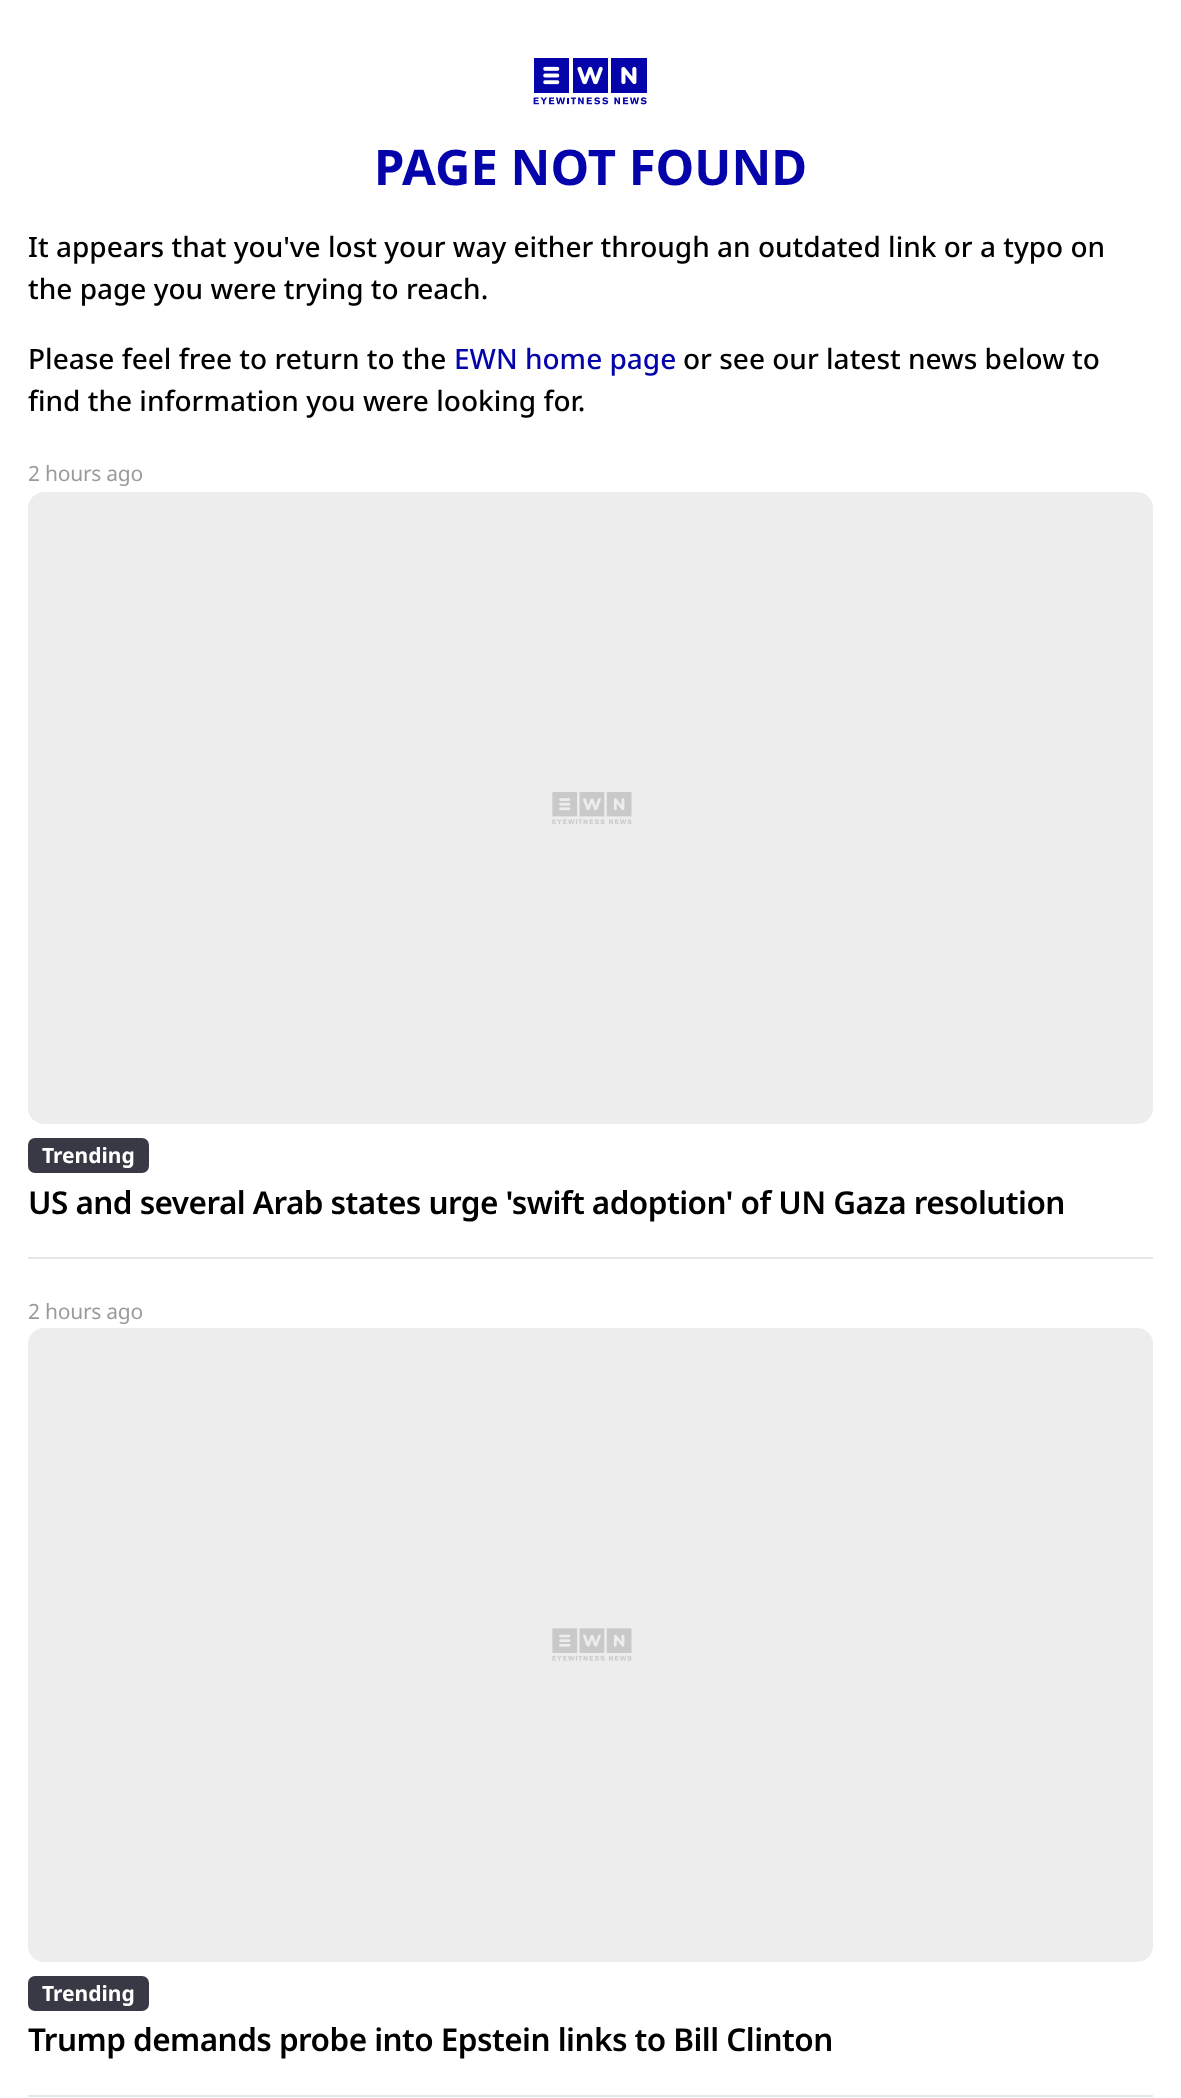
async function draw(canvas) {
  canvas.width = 1181
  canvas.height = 2098
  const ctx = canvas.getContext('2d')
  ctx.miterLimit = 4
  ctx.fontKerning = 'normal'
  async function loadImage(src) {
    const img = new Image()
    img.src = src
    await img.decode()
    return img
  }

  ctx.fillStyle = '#fff'
  ctx.fillRect(0, 0, 1181, 2098)
  ctx.drawImage(await loadImage('image0.png'), 533, 58, 114, 47)
  ctx.font = 'bold 49px Noto Sans'
  ctx.fillStyle = '#0504aa'
  ctx.fillText('PAGE NOT FOUND', 374, 185)
  ctx.font = '500 28px Noto Sans'
  ctx.fillStyle = '#000'
  ctx.fillText('It appears that you\'ve lost your way either through an outdated link or a typo on', 28, 257)
  ctx.fillText('the page you were trying to reach.', 28, 299)
  ctx.fillText('Please feel free to return to the', 28, 369)
  ctx.fillStyle = '#0504aa'
  ctx.fillText('EWN home page', 454, 369)
  ctx.fillStyle = '#000'
  ctx.fillText('or see our latest news below to', 683, 369)
  ctx.fillText('find the information you were looking for.', 28, 411)
  ctx.fillStyle = '#e6e6e6'
  ctx.fillRect(28, 1257, 1125, 2)
  ctx.letterSpacing = '-0.25px'
  ctx.font = '21px Noto Sans'
  ctx.fillStyle = '#9b9b9b'
  ctx.fillText('2 hours ago', 28, 481)
  ctx.fillStyle = '#ededed'
  ctx.beginPath()
  ctx.roundRect(28, 492, 1125, 632, 16)
  ctx.fill()
  ctx.drawImage(await loadImage('image1.png'), 552, 792, 80, 33)
  ctx.fillStyle = '#393945'
  ctx.beginPath()
  ctx.roundRect(28, 1138, 121, 35, 7)
  ctx.fill()
  ctx.letterSpacing = '0px'
  ctx.font = 'bold 21px Noto Sans'
  ctx.fillStyle = '#fff'
  ctx.fillText('Trending', 42, 1163)
  ctx.letterSpacing = '-0.55px'
  ctx.font = '600 31.5px Noto Sans'
  ctx.fillStyle = '#000'
  ctx.fillText('US and several Arab states urge \'swift adoption\' of UN Gaza resolution', 28, 1214)
  ctx.fillStyle = '#e6e6e6'
  ctx.fillRect(28, 2095, 1125, 2)
  ctx.letterSpacing = '-0.25px'
  ctx.font = '21px Noto Sans'
  ctx.fillStyle = '#9b9b9b'
  ctx.fillText('2 hours ago', 28, 1319)
  ctx.fillStyle = '#ededed'
  ctx.beginPath()
  ctx.roundRect(28, 1328, 1125, 634, 16)
  ctx.fill()
  ctx.drawImage(await loadImage('image2.png'), 552, 1628, 80, 33)
  ctx.fillStyle = '#393945'
  ctx.beginPath()
  ctx.roundRect(28, 1976, 121, 35, 7)
  ctx.fill()
  ctx.letterSpacing = '0px'
  ctx.font = 'bold 21px Noto Sans'
  ctx.fillStyle = '#fff'
  ctx.fillText('Trending', 42, 2001)
  ctx.letterSpacing = '-0.55px'
  ctx.font = '600 31.5px Noto Sans'
  ctx.fillStyle = '#000'
  ctx.fillText('Trump demands probe into Epstein links to Bill Clinton', 28, 2051)
}

draw(document.querySelector('canvas'))
